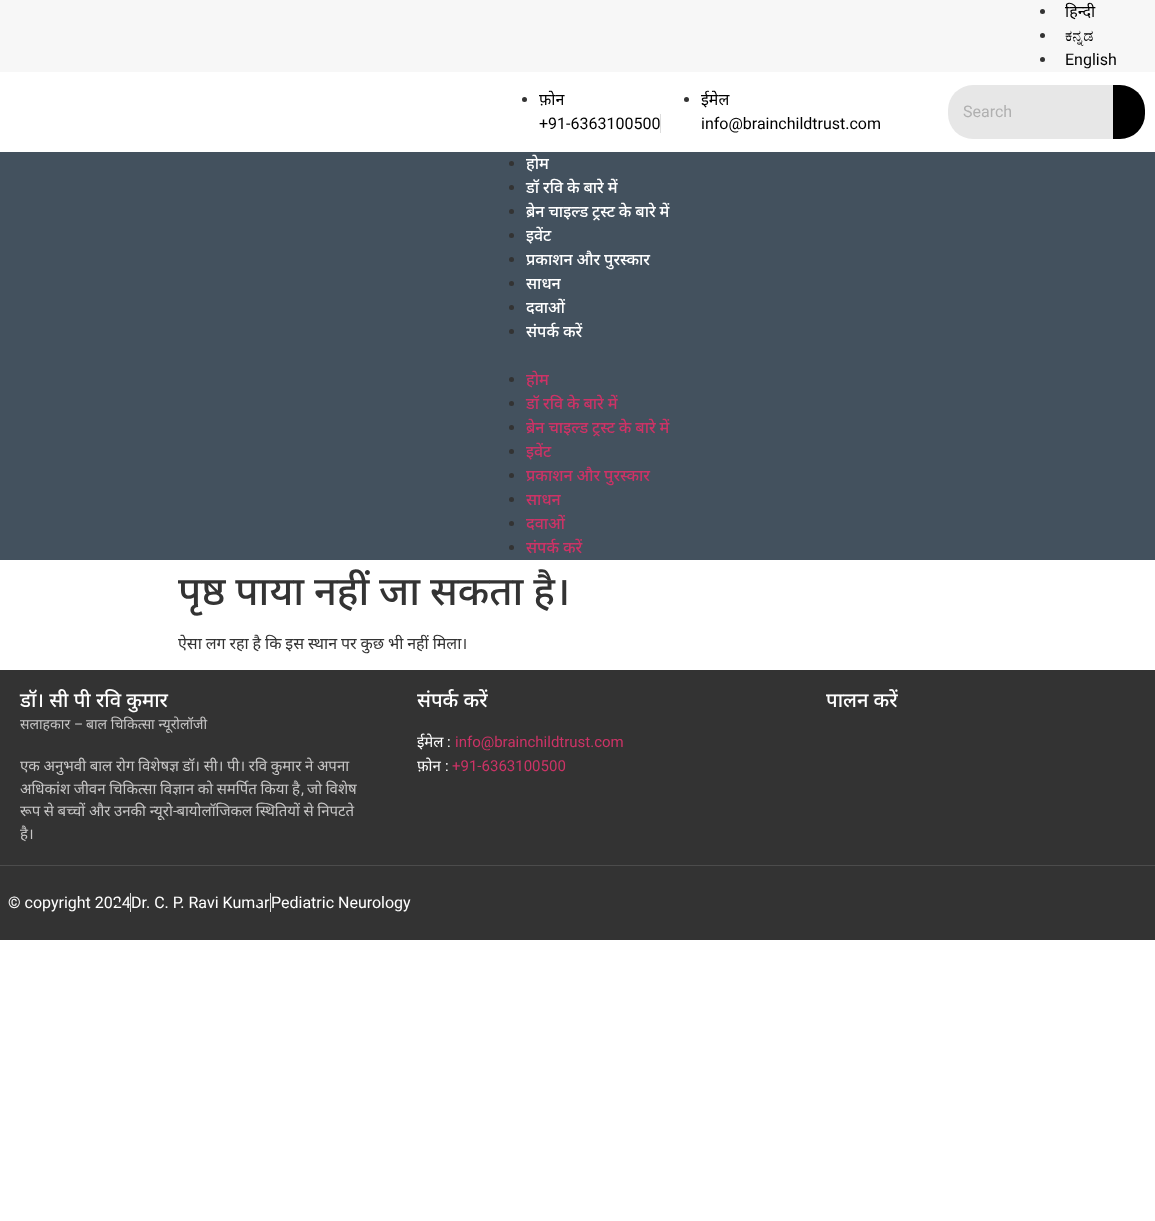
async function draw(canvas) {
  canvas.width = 1155
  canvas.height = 1221
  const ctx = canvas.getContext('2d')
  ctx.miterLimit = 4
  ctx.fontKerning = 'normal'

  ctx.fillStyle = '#fff'
  ctx.fillRect(0, 0, 1155, 1221)
  ctx.fillStyle = '#f7f7f7'
  ctx.fillRect(0, 0, 1155, 72)
  ctx.fillStyle = '#333'
  ctx.beginPath()
  ctx.arc(1042.5, 11.5, 2.5, 0, 2 * Math.PI)
  ctx.fill()
  ctx.font = '16px Noto Sans'
  ctx.fillStyle = '#000'
  ctx.fillText('हिन्दी', 1065, 17)
  ctx.fillStyle = '#333'
  ctx.beginPath()
  ctx.arc(1042.5, 35.5, 2.5, 0, 2 * Math.PI)
  ctx.fill()
  ctx.font = '16px FreeSerif'
  ctx.fillStyle = '#000'
  ctx.fillText('ಕನ್ನಡ', 1065, 41)
  ctx.fillStyle = '#333'
  ctx.beginPath()
  ctx.arc(1042.5, 59.5, 2.5, 0, 2 * Math.PI)
  ctx.fill()
  ctx.font = '16px Roboto'
  ctx.fillStyle = '#000'
  ctx.fillText('English', 1065, 65)
  ctx.fillStyle = '#333'
  ctx.beginPath()
  ctx.arc(524.5, 99.5, 2.5, 0, 2 * Math.PI)
  ctx.fill()
  ctx.font = '16px Noto Sans'
  ctx.fillStyle = '#000'
  ctx.fillText('फ़ोन', 539, 105)
  ctx.font = '16px Roboto'
  ctx.fillText('+91-6363100500', 539, 129)
  ctx.fillStyle = '#ddd'
  ctx.fillRect(660, 114, 1, 19)
  ctx.fillStyle = '#333'
  ctx.beginPath()
  ctx.arc(686.5, 99.5, 2.5, 0, 2 * Math.PI)
  ctx.fill()
  ctx.font = '16px Noto Sans'
  ctx.fillStyle = '#000'
  ctx.fillText('ईमेल', 701, 105)
  ctx.font = '16px Roboto'
  ctx.fillText('info@brainchildtrust.com', 701, 129)
  ctx.fillStyle = '#e7e7e7'
  ctx.beginPath()
  ctx.roundRect(948, 85, 165, 54, [25, 0, 0, 25])
  ctx.fill()
  ctx.fillStyle = '#b0b0b0'
  ctx.fillText('Search', 963, 117)
  ctx.fillStyle = '#000'
  ctx.beginPath()
  ctx.roundRect(1113, 85, 32, 54, [0, 25, 25, 0])
  ctx.fill()
  ctx.fillStyle = '#43515e'
  ctx.fillRect(0, 152, 1155, 408)
  ctx.fillStyle = '#333'
  ctx.beginPath()
  ctx.arc(511.5, 163.5, 2.5, 0, 2 * Math.PI)
  ctx.fill()
  ctx.font = '500 16px Noto Sans'
  ctx.fillStyle = '#fff'
  ctx.fillText('होम', 526, 169)
  ctx.fillStyle = '#333'
  ctx.beginPath()
  ctx.arc(511.5, 187.5, 2.5, 0, 2 * Math.PI)
  ctx.fill()
  ctx.wordSpacing = '-0.25px'
  ctx.fillStyle = '#fff'
  ctx.fillText('डॉ रवि के बारे में', 526, 193)
  ctx.fillStyle = '#333'
  ctx.beginPath()
  ctx.arc(511.5, 211.5, 2.5, 0, 2 * Math.PI)
  ctx.fill()
  ctx.fillStyle = '#fff'
  ctx.fillText('ब्रेन चाइल्ड ट्रस्ट के बारे में', 526, 217)
  ctx.fillStyle = '#333'
  ctx.beginPath()
  ctx.arc(511.5, 235.5, 2.5, 0, 2 * Math.PI)
  ctx.fill()
  ctx.wordSpacing = '0px'
  ctx.fillStyle = '#fff'
  ctx.fillText('इवेंट', 526, 241)
  ctx.fillStyle = '#333'
  ctx.beginPath()
  ctx.arc(511.5, 259.5, 2.5, 0, 2 * Math.PI)
  ctx.fill()
  ctx.wordSpacing = '-0.25px'
  ctx.fillStyle = '#fff'
  ctx.fillText('प्रकाशन और पुरस्कार', 526, 265)
  ctx.fillStyle = '#333'
  ctx.beginPath()
  ctx.arc(511.5, 283.5, 2.5, 0, 2 * Math.PI)
  ctx.fill()
  ctx.wordSpacing = '0px'
  ctx.fillStyle = '#fff'
  ctx.fillText('साधन', 526, 289)
  ctx.fillStyle = '#333'
  ctx.beginPath()
  ctx.arc(511.5, 307.5, 2.5, 0, 2 * Math.PI)
  ctx.fill()
  ctx.fillStyle = '#fff'
  ctx.fillText('दवाओं', 526, 313)
  ctx.fillStyle = '#333'
  ctx.beginPath()
  ctx.arc(511.5, 331.5, 2.5, 0, 2 * Math.PI)
  ctx.fill()
  ctx.wordSpacing = '-0.25px'
  ctx.fillStyle = '#fff'
  ctx.fillText('संपर्क करें', 526, 337)
  ctx.fillStyle = '#333'
  ctx.beginPath()
  ctx.arc(511.5, 379.5, 2.5, 0, 2 * Math.PI)
  ctx.fill()
  ctx.wordSpacing = '0px'
  ctx.fillStyle = '#c36'
  ctx.fillText('होम', 526, 385)
  ctx.fillStyle = '#333'
  ctx.beginPath()
  ctx.arc(511.5, 403.5, 2.5, 0, 2 * Math.PI)
  ctx.fill()
  ctx.wordSpacing = '-0.25px'
  ctx.fillStyle = '#c36'
  ctx.fillText('डॉ रवि के बारे में', 526, 409)
  ctx.fillStyle = '#333'
  ctx.beginPath()
  ctx.arc(511.5, 427.5, 2.5, 0, 2 * Math.PI)
  ctx.fill()
  ctx.fillStyle = '#c36'
  ctx.fillText('ब्रेन चाइल्ड ट्रस्ट के बारे में', 526, 433)
  ctx.fillStyle = '#333'
  ctx.beginPath()
  ctx.arc(511.5, 451.5, 2.5, 0, 2 * Math.PI)
  ctx.fill()
  ctx.wordSpacing = '0px'
  ctx.fillStyle = '#c36'
  ctx.fillText('इवेंट', 526, 457)
  ctx.fillStyle = '#333'
  ctx.beginPath()
  ctx.arc(511.5, 475.5, 2.5, 0, 2 * Math.PI)
  ctx.fill()
  ctx.wordSpacing = '-0.25px'
  ctx.fillStyle = '#c36'
  ctx.fillText('प्रकाशन और पुरस्कार', 526, 481)
  ctx.fillStyle = '#333'
  ctx.beginPath()
  ctx.arc(511.5, 499.5, 2.5, 0, 2 * Math.PI)
  ctx.fill()
  ctx.wordSpacing = '0px'
  ctx.fillStyle = '#c36'
  ctx.fillText('साधन', 526, 505)
  ctx.fillStyle = '#333'
  ctx.beginPath()
  ctx.arc(511.5, 523.5, 2.5, 0, 2 * Math.PI)
  ctx.fill()
  ctx.fillStyle = '#c36'
  ctx.fillText('दवाओं', 526, 529)
  ctx.fillStyle = '#333'
  ctx.beginPath()
  ctx.arc(511.5, 547.5, 2.5, 0, 2 * Math.PI)
  ctx.fill()
  ctx.wordSpacing = '-0.25px'
  ctx.fillStyle = '#c36'
  ctx.fillText('संपर्क करें', 526, 553)
  ctx.wordSpacing = '-0.5px'
  ctx.font = '500 40px Noto Sans'
  ctx.fillStyle = '#333'
  ctx.fillText('पृष्ठ पाया नहीं जा सकता है।', 178, 605)
  ctx.wordSpacing = '-0.25px'
  ctx.font = '16px Noto Sans'
  ctx.fillText('ऐसा लग रहा है कि इस स्थान पर कुछ भी नहीं मिला।', 178, 649)
  ctx.fillRect(0, 670, 1155, 195)
  ctx.wordSpacing = '0px'
  ctx.font = '500 20px Noto Sans'
  ctx.fillStyle = '#fff'
  ctx.fillText('डॉ। सी पी रवि कुमार', 20, 707)
  ctx.font = '14px Noto Sans'
  ctx.fillStyle = '#c7c6c6'
  ctx.fillText('सलाहकार', 20, 729)
  ctx.font = '14px Roboto'
  ctx.fillText('–', 74, 729)
  ctx.font = '14px Noto Sans'
  ctx.fillText('बाल चिकित्सा न्यूरोलॉजी', 86, 729)
  ctx.wordSpacing = '-0.25px'
  ctx.font = '15px Noto Sans'
  ctx.fillText('एक अनुभवी बाल रोग विशेषज्ञ डॉ। सी। पी। रवि कुमार ने अपना', 20, 771)
  ctx.fillText('अधिकांश जीवन चिकित्सा विज्ञान को समर्पित किया है', 20, 794)
  ctx.wordSpacing = '0px'
  ctx.font = '15px Roboto'
  ctx.fillText(',', 301, 794)
  ctx.wordSpacing = '-0.25px'
  ctx.font = '15px Noto Sans'
  ctx.fillText('जो विशेष', 307, 794)
  ctx.fillText('रूप से बच्चों और उनकी न्यूरो बायोलॉजिकल स्थितियों से निपटते', 20, 816)
  ctx.wordSpacing = '0px'
  ctx.font = '15px Roboto'
  ctx.fillText('-', 173, 816)
  ctx.font = '15px Noto Sans'
  ctx.fillText('है।', 20, 839)
  ctx.font = '500 20px Noto Sans'
  ctx.fillStyle = '#fff'
  ctx.fillText('संपर्क करें', 417, 707)
  ctx.font = '15px Noto Sans'
  ctx.fillText('ईमेल', 417, 747)
  ctx.font = '15px Roboto'
  ctx.fillText(':', 447, 747)
  ctx.fillStyle = '#c36'
  ctx.fillText('info@brainchildtrust.com', 455, 747)
  ctx.font = '15px Noto Sans'
  ctx.fillStyle = '#fff'
  ctx.fillText('फ़ोन', 417, 771)
  ctx.font = '15px Roboto'
  ctx.fillText(':', 445, 771)
  ctx.fillStyle = '#c36'
  ctx.fillText('+91-6363100500', 452, 771)
  ctx.font = '500 20px Noto Sans'
  ctx.fillStyle = '#fff'
  ctx.fillText('पालन करें', 826, 707)
  ctx.fillStyle = '#333'
  ctx.fillRect(0, 866, 1155, 74)
  ctx.fillStyle = '#4c4c4c'
  ctx.fillRect(0, 865, 1155, 1)
  ctx.font = '16px Roboto'
  ctx.fillStyle = '#fff'
  ctx.fillText('© copyright 2024', 8, 908)
  ctx.fillStyle = '#ddd'
  ctx.fillRect(130, 893, 1, 19)
  ctx.fillStyle = '#333'
  ctx.beginPath()
  ctx.arc(116.5, 902.5, 2.5, 0, 2 * Math.PI)
  ctx.fill()
  ctx.fillStyle = '#fff'
  ctx.fillText('Dr. C. P. Ravi Kumar', 131, 908)
  ctx.fillStyle = '#ddd'
  ctx.fillRect(270, 893, 1, 19)
  ctx.fillStyle = '#333'
  ctx.beginPath()
  ctx.arc(256.5, 902.5, 2.5, 0, 2 * Math.PI)
  ctx.fill()
  ctx.fillStyle = '#fff'
  ctx.fillText('Pediatric Neurology', 271, 908)
}

draw(document.querySelector('canvas'))
